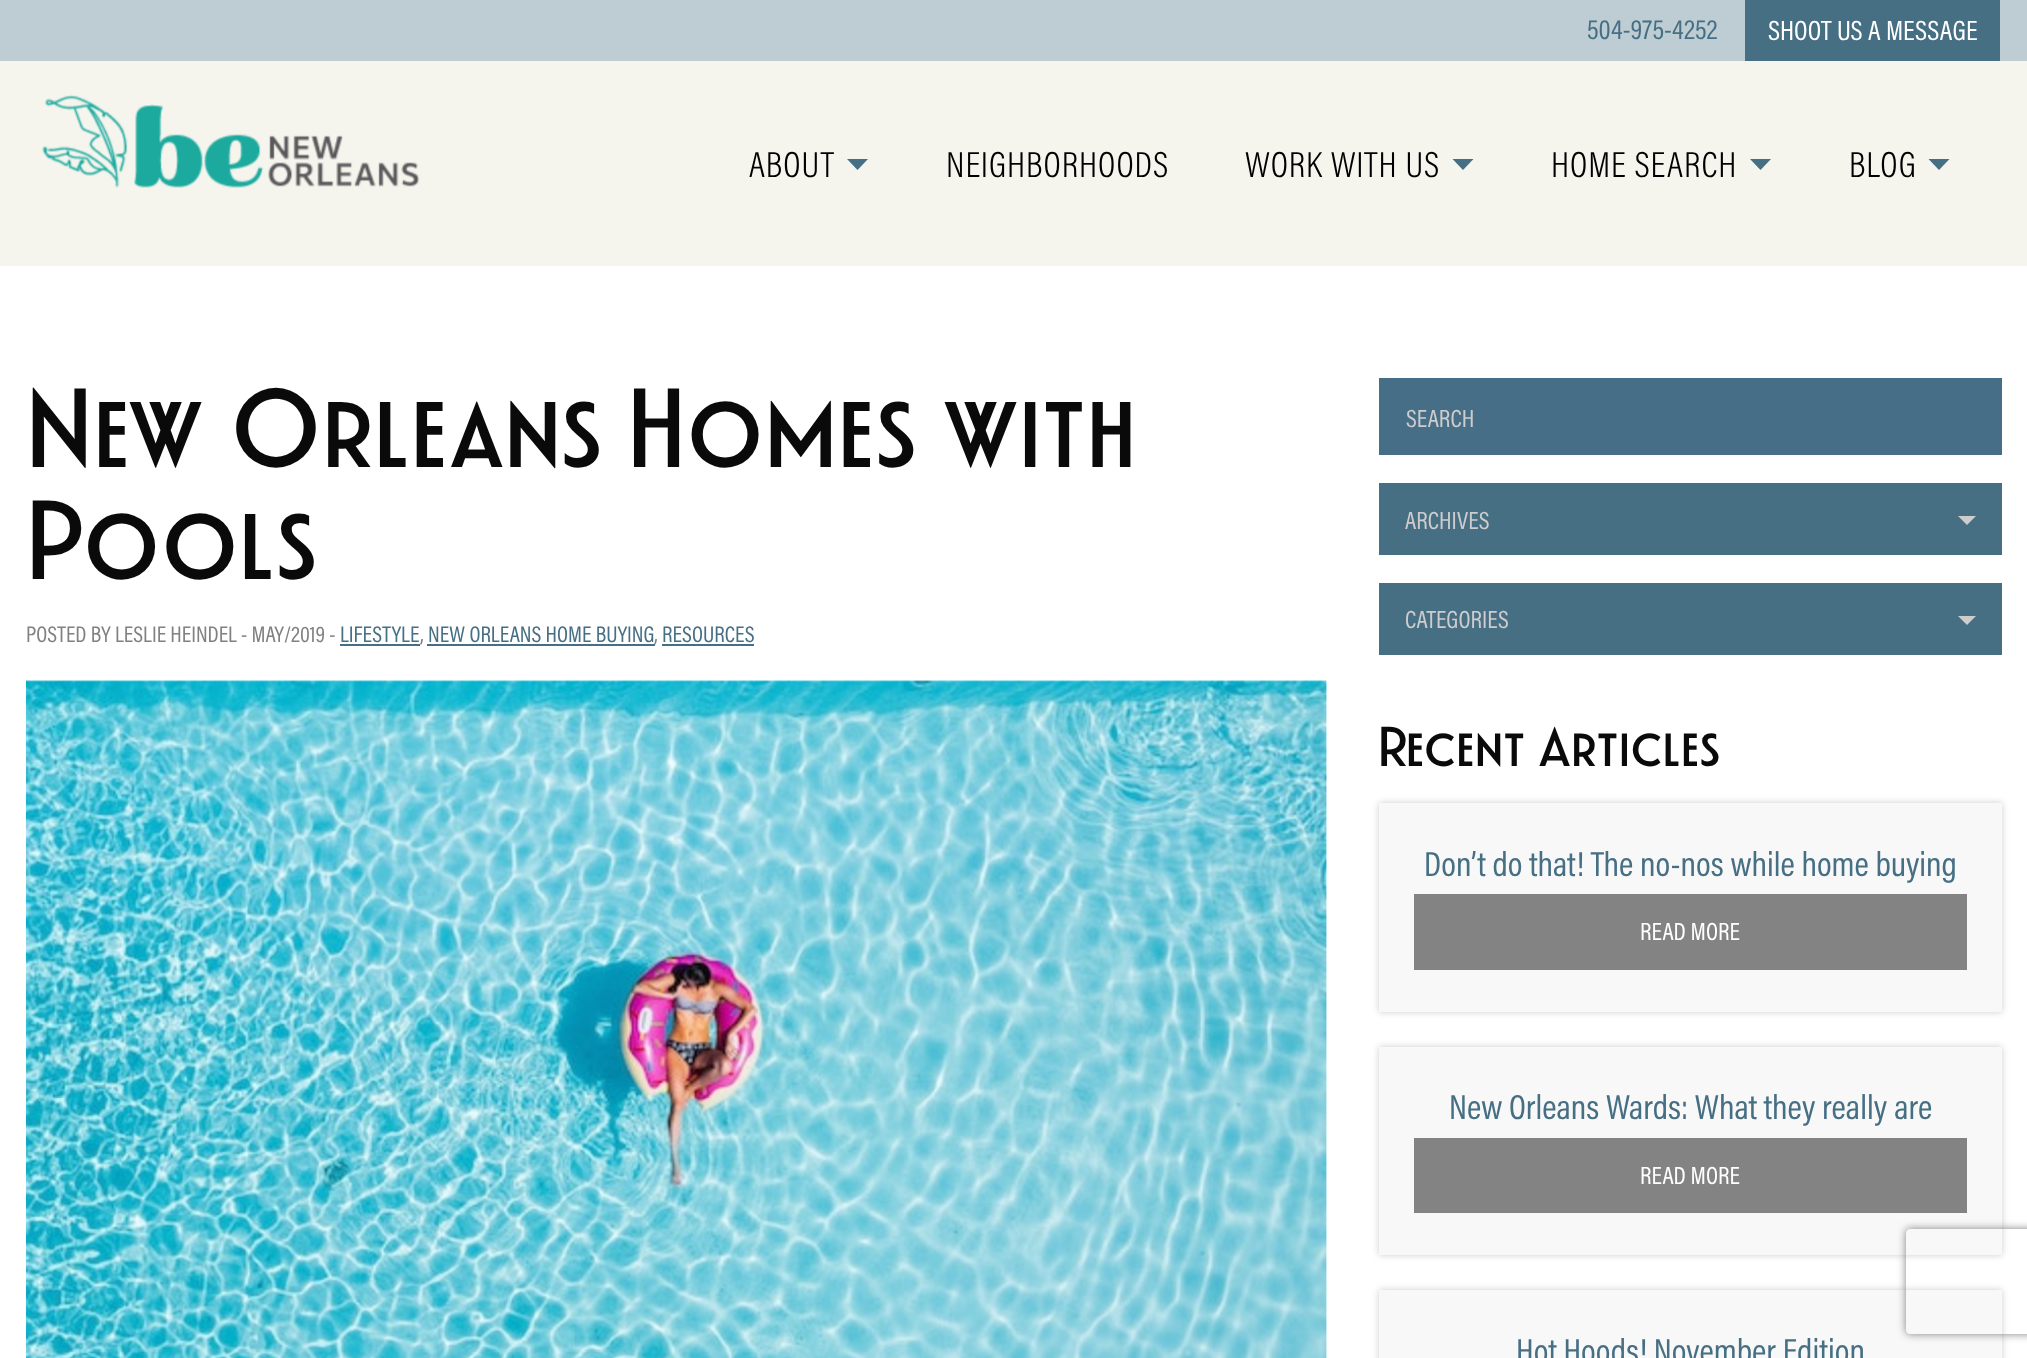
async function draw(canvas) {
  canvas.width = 2027
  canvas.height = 1358
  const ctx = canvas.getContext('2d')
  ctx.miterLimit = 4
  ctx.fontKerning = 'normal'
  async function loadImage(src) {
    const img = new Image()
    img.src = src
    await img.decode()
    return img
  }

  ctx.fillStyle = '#fff'
  ctx.fillRect(0, 0, 2027, 1358)
  ctx.fillStyle = '#becdd4'
  ctx.fillRect(0, 0, 2027, 61)
  ctx.font = '28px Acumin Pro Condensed'
  ctx.fillStyle = '#466f84'
  ctx.fillText('504-975-4252', 1587, 39)
  ctx.fillRect(1745, 0, 255, 61)
  ctx.fillStyle = '#fff'
  ctx.fillText('SHOOT US A MESSAGE', 1768, 40)
  ctx.fillStyle = '#f5f4ed'
  ctx.fillRect(0, 61, 2027, 205)
  ctx.drawImage(await loadImage('image0.png'), 42, 94, 378, 94)
  ctx.letterSpacing = '0.9px'
  ctx.font = '300 36.5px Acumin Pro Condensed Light'
  ctx.fillStyle = '#000'
  ctx.fillText('ABOUT', 749, 177)
  ctx.fillStyle = '#466f84'
  ctx.beginPath()
  ctx.moveTo(847, 159)
  ctx.lineTo(868, 159)
  ctx.lineTo(857.5, 170)
  ctx.closePath()
  ctx.fill()
  ctx.fillStyle = '#000'
  ctx.fillText('NEIGHBORHOODS', 946, 177)
  ctx.fillText('WORK WITH US', 1245, 177)
  ctx.fillStyle = '#466f84'
  ctx.beginPath()
  ctx.moveTo(1452.5, 159)
  ctx.lineTo(1473.5, 159)
  ctx.lineTo(1463, 170)
  ctx.closePath()
  ctx.fill()
  ctx.fillStyle = '#000'
  ctx.fillText('HOME SEARCH', 1551, 177)
  ctx.fillStyle = '#466f84'
  ctx.beginPath()
  ctx.moveTo(1750, 159)
  ctx.lineTo(1771, 159)
  ctx.lineTo(1760.5, 170)
  ctx.closePath()
  ctx.fill()
  ctx.fillStyle = '#000'
  ctx.fillText('BLOG', 1849, 177)
  ctx.fillStyle = '#466f84'
  ctx.beginPath()
  ctx.moveTo(1928.5, 159)
  ctx.lineTo(1949.5, 159)
  ctx.lineTo(1939, 170)
  ctx.closePath()
  ctx.fill()
  ctx.letterSpacing = '0px'
  ctx.font = 'bold 112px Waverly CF'
  ctx.fillStyle = '#0a0a0a'
  ctx.fillText('New Orleans Homes with', 26, 467)
  ctx.fillText('Pools', 26, 579)
  ctx.font = '22.75px Acumin Pro Condensed'
  ctx.fillStyle = '#818181'
  ctx.fillText('POSTED BY LESLIE HEINDEL - MAY/2019 -', 26, 642)
  ctx.fillStyle = '#466f84'
  ctx.fillText('LIFESTYLE', 340, 642)
  ctx.fillRect(340, 644, 80, 2)
  ctx.fillStyle = '#818181'
  ctx.fillText(',', 420, 642)
  ctx.fillStyle = '#466f84'
  ctx.fillText('NEW ORLEANS HOME BUYING', 428, 642)
  ctx.fillRect(427, 644, 228, 2)
  ctx.fillStyle = '#818181'
  ctx.fillText(',', 654, 642)
  ctx.fillStyle = '#466f84'
  ctx.fillText('RESOURCES', 662, 642)
  ctx.fillRect(662, 644, 92, 2)
  ctx.drawImage(await loadImage('image1.png'), 26, 680, 1301, 678)
  ctx.fillStyle = '#00000033'
  ctx.filter = 'blur(3.5px)'
  ctx.beginPath()
  ctx.rect(1379, 1047, 623, 208)
  ctx.fill()
  ctx.filter = 'none'
  ctx.fillStyle = '#f8f8f8'
  ctx.fillRect(1379, 1047, 623, 208)
  ctx.fillStyle = '#00000033'
  ctx.filter = 'blur(3.5px)'
  ctx.beginPath()
  ctx.rect(1379, 1290, 623, 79)
  ctx.fill()
  ctx.filter = 'none'
  ctx.fillStyle = '#f8f8f8'
  ctx.fillRect(1379, 1290, 623, 68)
  ctx.save()
  ctx.beginPath()
  ctx.moveTo(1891, 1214)
  ctx.lineTo(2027, 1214)
  ctx.lineTo(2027, 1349)
  ctx.lineTo(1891, 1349)
  ctx.closePath()
  ctx.moveTo(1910, 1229)
  ctx.lineTo(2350, 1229)
  ctx.bezierCurveTo(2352, 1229, 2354, 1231, 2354, 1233)
  ctx.lineTo(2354, 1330)
  ctx.bezierCurveTo(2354, 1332, 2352, 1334, 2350, 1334)
  ctx.lineTo(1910, 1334)
  ctx.bezierCurveTo(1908, 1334, 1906, 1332, 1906, 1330)
  ctx.lineTo(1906, 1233)
  ctx.bezierCurveTo(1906, 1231, 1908, 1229, 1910, 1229)
  ctx.closePath()
  ctx.clip('evenodd')
  ctx.fillStyle = '#808080'
  ctx.filter = 'blur(4.5px)'
  ctx.beginPath()
  ctx.roundRect(1906, 1229, 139, 105, 4)
  ctx.fill()
  ctx.filter = 'none'
  ctx.restore()
  ctx.fillStyle = '#466f87'
  ctx.fillRect(1379, 378, 623, 77)
  ctx.font = '25px Acumin Pro Condensed'
  ctx.fillStyle = '#cecccc'
  ctx.fillText('SEARCH', 1406, 427)
  ctx.fillStyle = '#466f84'
  ctx.fillRect(1379, 483, 623, 72)
  ctx.fillStyle = '#cecccc'
  ctx.fillText('ARCHIVES', 1405, 529)
  ctx.beginPath()
  ctx.moveTo(1958, 516)
  ctx.lineTo(1976, 516)
  ctx.lineTo(1967, 525)
  ctx.closePath()
  ctx.fill()
  ctx.fillStyle = '#466f84'
  ctx.fillRect(1379, 583, 623, 72)
  ctx.fillStyle = '#cecccc'
  ctx.fillText('CATEGORIES', 1405, 628)
  ctx.beginPath()
  ctx.moveTo(1958, 616)
  ctx.lineTo(1976, 616)
  ctx.lineTo(1967, 625)
  ctx.closePath()
  ctx.fill()
  ctx.font = 'bold 56px Waverly CF'
  ctx.fillStyle = '#0a0a0a'
  ctx.fillText('Recent Articles', 1378, 766)
  ctx.fillStyle = '#00000033'
  ctx.filter = 'blur(3.5px)'
  ctx.beginPath()
  ctx.rect(1379, 803, 623, 209)
  ctx.fill()
  ctx.filter = 'none'
  ctx.fillStyle = '#f8f8f8'
  ctx.fillRect(1379, 803, 623, 209)
  ctx.font = '35px Acumin Pro Condensed'
  ctx.fillStyle = '#466f84'
  ctx.fillText('Don’t do that! The no-nos while home buying', 1424, 876)
  ctx.fillStyle = '#838383'
  ctx.fillRect(1414, 894, 553, 76)
  ctx.font = '25px Acumin Pro Condensed'
  ctx.fillStyle = '#fff'
  ctx.fillText('READ MORE', 1640, 940)
  ctx.font = '35px Acumin Pro Condensed'
  ctx.fillStyle = '#466f84'
  ctx.fillText('New Orleans Wards: What they really are', 1449, 1119)
  ctx.fillStyle = '#838383'
  ctx.fillRect(1414, 1138, 553, 75)
  ctx.font = '25px Acumin Pro Condensed'
  ctx.fillStyle = '#fff'
  ctx.fillText('READ MORE', 1640, 1184)
  ctx.font = '35px Acumin Pro Condensed'
  ctx.fillStyle = '#466f84'
  ctx.fillText('Hot Hoods! November Edition', 1516, 1363)
}

draw(document.querySelector('canvas'))
